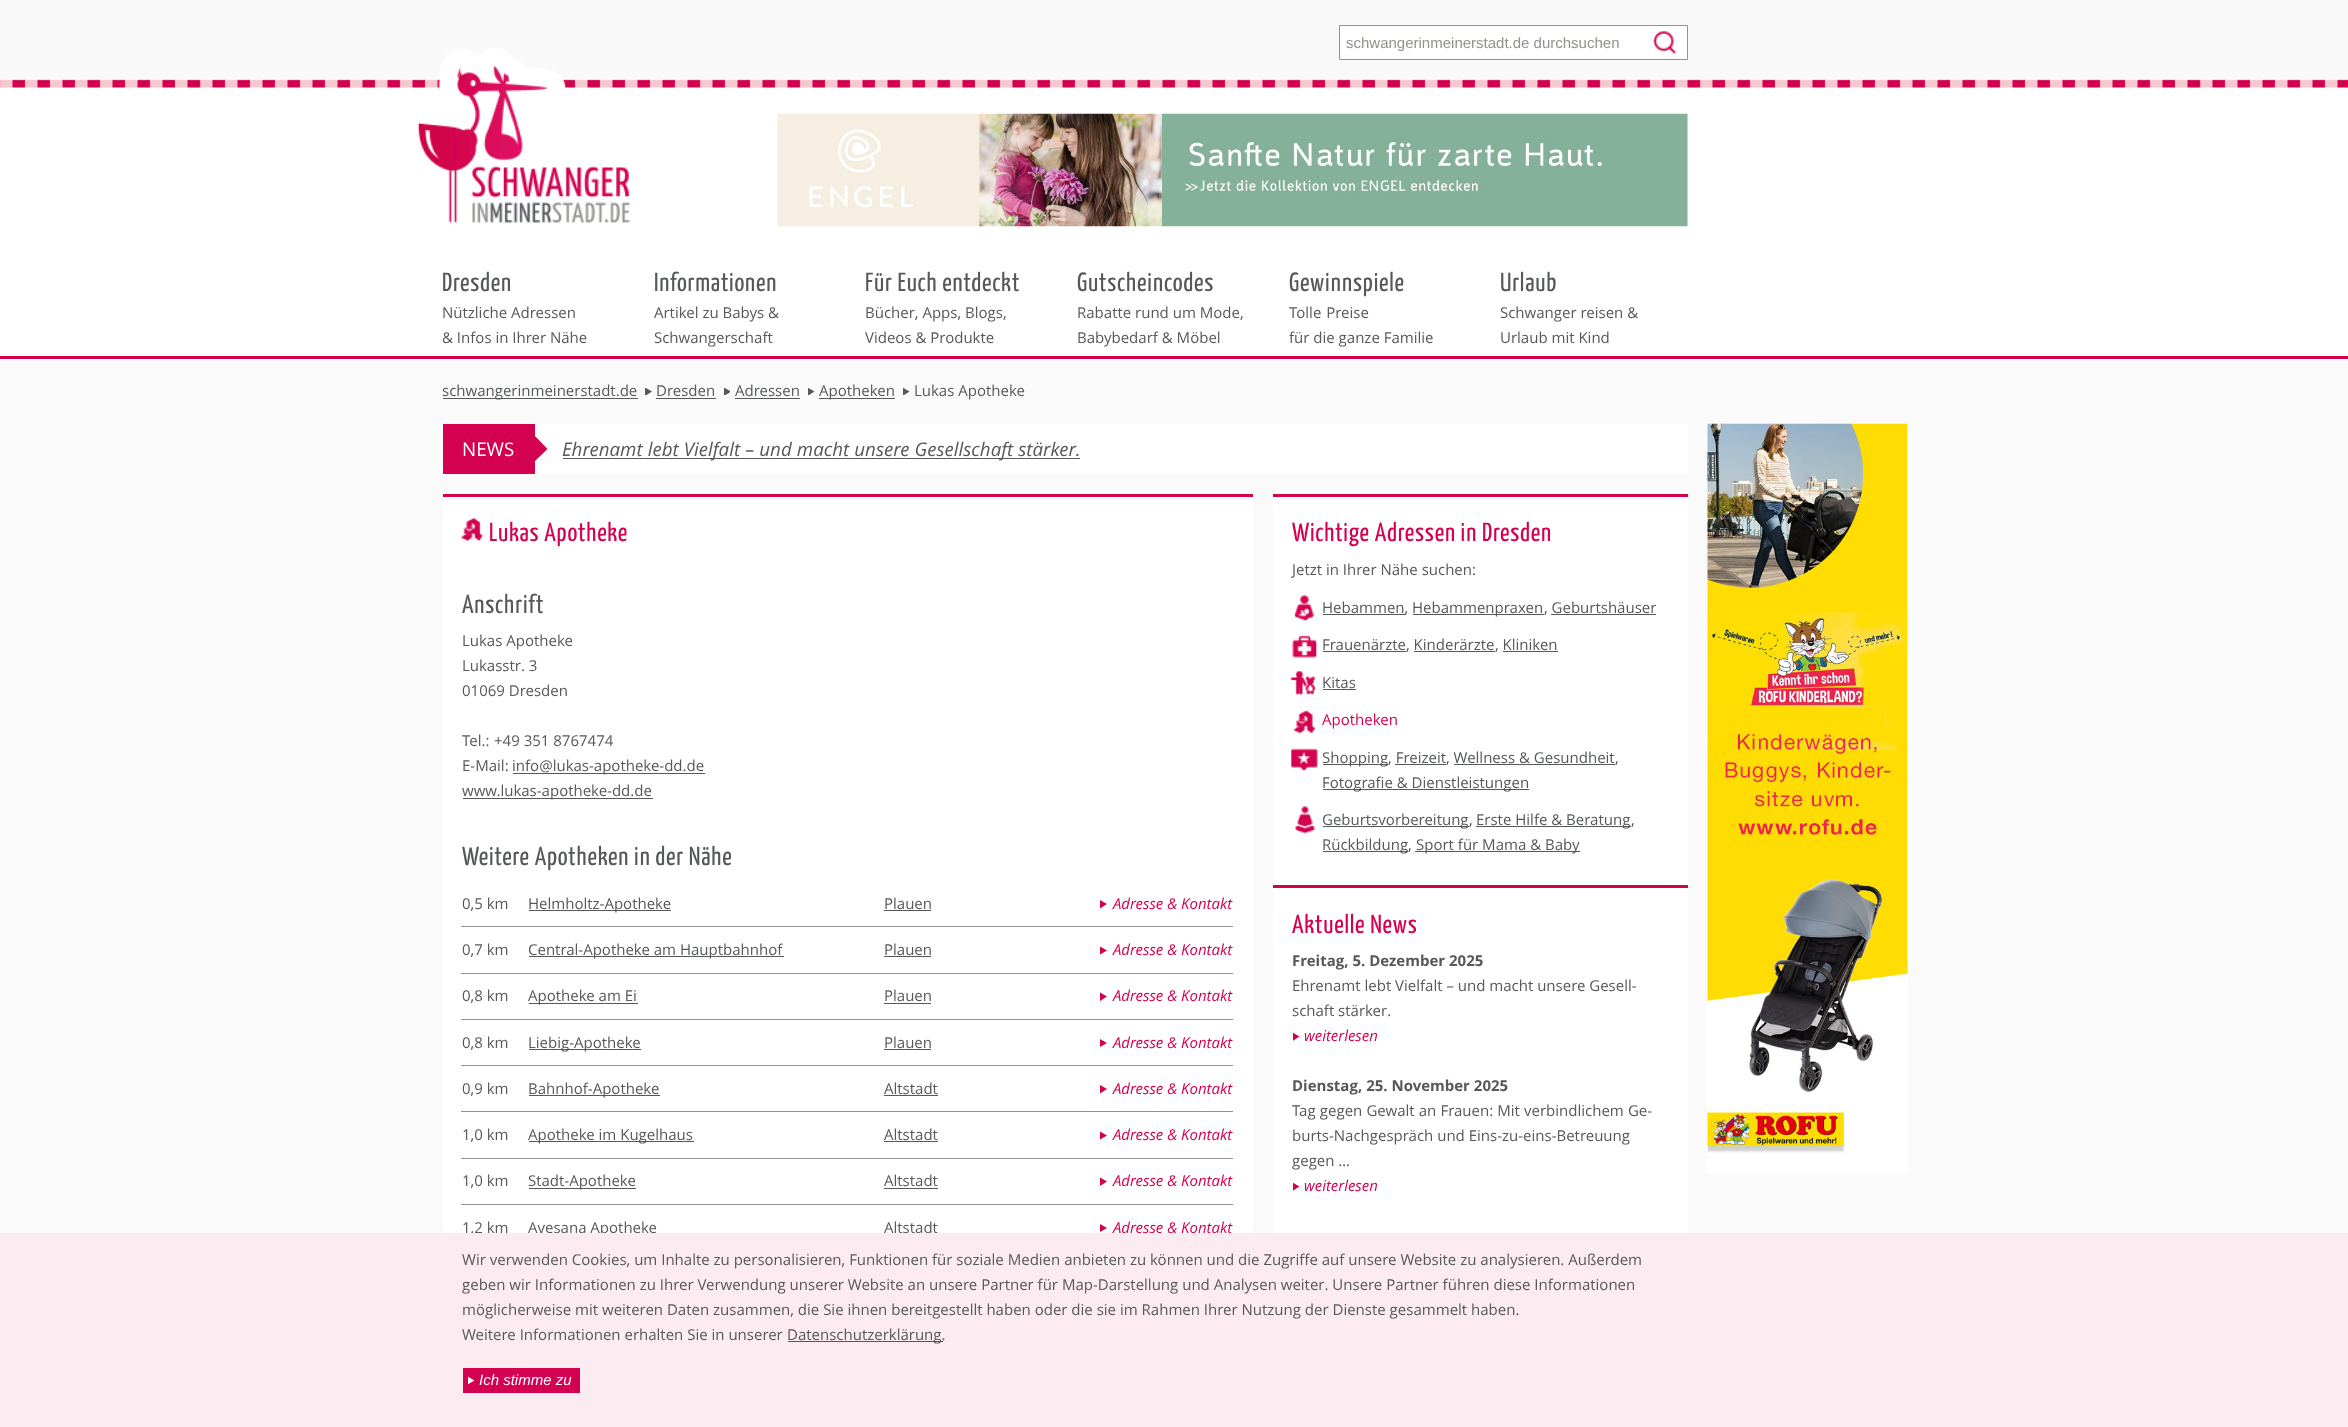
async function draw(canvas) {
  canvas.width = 2348
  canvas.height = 1427
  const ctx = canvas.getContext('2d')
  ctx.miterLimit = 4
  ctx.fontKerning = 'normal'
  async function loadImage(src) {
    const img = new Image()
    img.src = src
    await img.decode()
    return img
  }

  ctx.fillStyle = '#fafafa'
  ctx.fillRect(0, 0, 2348, 1427)
  ctx.fillStyle = '#fff'
  ctx.fillRect(0, 87, 2348, 269)
  ctx.drawImage(await loadImage('image0.png'), 0, 0, 2348, 88)
  ctx.fillStyle = '#d40050'
  ctx.fillRect(0, 356, 2348, 3)
  ctx.fillStyle = '#fff'
  ctx.beginPath()
  ctx.rect(1339.5, 25.5, 348, 34)
  ctx.fill()
  ctx.strokeStyle = '#92928e'
  ctx.stroke()
  ctx.font = '15px Liberation Sans'
  ctx.fillStyle = '#92928e'
  ctx.fillText('schwangerinmeinerstadt.de durchsuchen', 1346, 48)
  ctx.drawImage(await loadImage('image1.png'), 1653, 31, 24, 23)
  ctx.drawImage(await loadImage('image2.png'), 777, 113, 911, 114)
  ctx.drawImage(await loadImage('image3.png'), 418, 48, 213, 175)
  ctx.letterSpacing = '0.75px'
  ctx.font = '26.25px Yanone Kaffeesatz'
  ctx.fillStyle = '#565859'
  ctx.fillText('Dresden', 442, 291)
  ctx.letterSpacing = '0px'
  ctx.font = '15px Open Sans'
  ctx.fillText('Nützliche Adressen', 442, 318)
  ctx.fillText('& Infos in Ihrer Nähe', 442, 343)
  ctx.letterSpacing = '0.75px'
  ctx.font = '26.25px Yanone Kaffeesatz'
  ctx.fillText('Informationen', 654, 291)
  ctx.letterSpacing = '0px'
  ctx.font = '15px Open Sans'
  ctx.fillText('Artikel zu Babys &', 654, 318)
  ctx.fillText('Schwangerschaft', 654, 343)
  ctx.letterSpacing = '0.75px'
  ctx.font = '26.25px Yanone Kaffeesatz'
  ctx.fillText('Für Euch entdeckt', 865, 291)
  ctx.letterSpacing = '0px'
  ctx.font = '15px Open Sans'
  ctx.fillText('Bücher, Apps, Blogs,', 865, 318)
  ctx.fillText('Videos & Produkte', 865, 343)
  ctx.letterSpacing = '0.75px'
  ctx.font = '26.25px Yanone Kaffeesatz'
  ctx.fillText('Gutscheincodes', 1077, 291)
  ctx.letterSpacing = '0px'
  ctx.font = '15px Open Sans'
  ctx.fillText('Rabatte rund um Mode,', 1077, 318)
  ctx.fillText('Babybedarf & Möbel', 1077, 343)
  ctx.letterSpacing = '0.75px'
  ctx.font = '26.25px Yanone Kaffeesatz'
  ctx.fillText('Gewinnspiele', 1289, 291)
  ctx.letterSpacing = '0px'
  ctx.wordSpacing = '1px'
  ctx.font = '15px Open Sans'
  ctx.fillText('Tolle Preise', 1289, 318)
  ctx.wordSpacing = '0px'
  ctx.fillText('für die ganze Familie', 1289, 343)
  ctx.letterSpacing = '0.75px'
  ctx.font = '26.25px Yanone Kaffeesatz'
  ctx.fillText('Urlaub', 1500, 291)
  ctx.letterSpacing = '0px'
  ctx.font = '15px Open Sans'
  ctx.fillText('Schwanger reisen &', 1500, 318)
  ctx.fillText('Urlaub mit Kind', 1500, 343)
  ctx.fillStyle = '#fff'
  ctx.fillRect(443, 424, 1245, 809)
  ctx.fillStyle = '#565859'
  ctx.fillRect(443, 398, 195, 1)
  ctx.fillText('schwangerinmeinerstadt.de', 442, 396)
  ctx.save()
  ctx.beginPath()
  ctx.rect(645, 388, 8, 7)
  ctx.clip()
  ctx.beginPath()
  ctx.moveTo(645, 387.5)
  ctx.lineTo(652, 391.5)
  ctx.lineTo(645, 396)
  ctx.closePath()
  ctx.fill()
  ctx.restore()
  ctx.fillText('Dresden', 656, 396)
  ctx.fillRect(656, 398, 60, 1)
  ctx.save()
  ctx.beginPath()
  ctx.rect(724, 388, 6, 7)
  ctx.clip()
  ctx.beginPath()
  ctx.moveTo(724, 387.5)
  ctx.lineTo(731, 391.5)
  ctx.lineTo(724, 396)
  ctx.closePath()
  ctx.fill()
  ctx.restore()
  ctx.fillText('Adressen', 735, 396)
  ctx.fillRect(735, 398, 65, 1)
  ctx.save()
  ctx.beginPath()
  ctx.rect(808, 388, 7, 7)
  ctx.clip()
  ctx.beginPath()
  ctx.moveTo(807.5, 387.5)
  ctx.lineTo(814.5, 391.5)
  ctx.lineTo(807.5, 396)
  ctx.closePath()
  ctx.fill()
  ctx.restore()
  ctx.fillRect(819, 398, 76, 1)
  ctx.fillText('Apotheken', 819, 396)
  ctx.save()
  ctx.beginPath()
  ctx.rect(903, 388, 7, 7)
  ctx.clip()
  ctx.beginPath()
  ctx.moveTo(902.5, 387.5)
  ctx.lineTo(909.5, 391.5)
  ctx.lineTo(902.5, 396)
  ctx.closePath()
  ctx.fill()
  ctx.restore()
  ctx.fillText('Lukas Apotheke', 914, 396)
  ctx.fillStyle = '#fafafa'
  ctx.fillRect(443, 474, 1245, 20)
  ctx.fillStyle = '#d40050'
  ctx.fillRect(443, 424, 92, 50)
  ctx.font = '18.75px Open Sans'
  ctx.fillStyle = '#fff'
  ctx.fillText('NEWS', 462, 456)
  ctx.fillStyle = '#d40050'
  ctx.beginPath()
  ctx.moveTo(535, 461)
  ctx.lineTo(535, 436)
  ctx.lineTo(547.5, 449)
  ctx.closePath()
  ctx.fill()
  ctx.fillStyle = '#565859'
  ctx.fillRect(563, 458, 517, 1)
  ctx.wordSpacing = '0.25px'
  ctx.font = 'italic 18.75px Open Sans'
  ctx.fillText('Ehrenamt lebt Vielfalt – und macht unsere Gesellschaft stärker.', 562, 456)
  ctx.drawImage(await loadImage('image4.png'), 1707, 423, 201, 750)
  ctx.fillStyle = '#d40050'
  ctx.fillRect(443, 494, 810, 3)
  ctx.drawImage(await loadImage('image5.png'), 461, 517, 22, 25)
  ctx.letterSpacing = '0.75px'
  ctx.wordSpacing = '0px'
  ctx.font = '26.25px Yanone Kaffeesatz'
  ctx.fillText('Lukas Apotheke', 489, 541)
  ctx.fillStyle = '#565859'
  ctx.fillText('Anschrift', 462, 613)
  ctx.letterSpacing = '0px'
  ctx.font = '15px Open Sans'
  ctx.fillText('Lukas Apotheke', 462, 646)
  ctx.fillText('Lukasstr. 3', 462, 671)
  ctx.fillText('01069 Dresden', 462, 696)
  ctx.fillText('Tel.:', 462, 746)
  ctx.fillText('+49 351 8767474', 494, 746)
  ctx.fillText('E-Mail:', 462, 771)
  ctx.fillRect(513, 773, 192, 1)
  ctx.fillText('info@lukas-apotheke-dd.de', 512, 771)
  ctx.fillRect(463, 798, 190, 1)
  ctx.fillText('www.lukas-apotheke-dd.de', 462, 796)
  ctx.letterSpacing = '0.75px'
  ctx.font = '26.25px Yanone Kaffeesatz'
  ctx.fillText('Weitere Apotheken in der Nähe', 462, 865)
  ctx.letterSpacing = '0px'
  ctx.font = '15px Open Sans'
  ctx.fillText('0,5 km', 462, 909)
  ctx.fillRect(529, 910, 142, 1)
  ctx.fillText('Helmholtz-Apotheke', 528, 909)
  ctx.fillText('Plauen', 884, 909)
  ctx.fillRect(884, 910, 47, 1)
  ctx.fillStyle = '#92928e'
  ctx.fillRect(461, 926, 772, 1)
  ctx.fillStyle = '#d40050'
  ctx.beginPath()
  ctx.moveTo(1100, 900)
  ctx.lineTo(1107, 904)
  ctx.lineTo(1100, 908.5)
  ctx.closePath()
  ctx.moveTo(1100, 946.5)
  ctx.lineTo(1107, 950.5)
  ctx.lineTo(1100, 954.5)
  ctx.closePath()
  ctx.fill()
  ctx.font = 'italic 15px Open Sans'
  ctx.fillText('Adresse & Kontakt', 1113, 909)
  ctx.font = '15px Open Sans'
  ctx.fillStyle = '#565859'
  ctx.fillText('0,7 km', 462, 955)
  ctx.fillRect(529, 956, 255, 1)
  ctx.fillText('Central-Apotheke am Hauptbahnhof', 528, 955)
  ctx.fillText('Plauen', 884, 955)
  ctx.fillRect(884, 956, 47, 1)
  ctx.font = 'italic 15px Open Sans'
  ctx.fillStyle = '#d40050'
  ctx.fillText('Adresse & Kontakt', 1113, 955)
  ctx.fillStyle = '#92928e'
  ctx.fillRect(461, 973, 772, 1)
  ctx.font = '15px Open Sans'
  ctx.fillStyle = '#565859'
  ctx.fillText('0,8 km', 462, 1001)
  ctx.fillRect(529, 1003, 109, 1)
  ctx.fillText('Apotheke am Ei', 528, 1001)
  ctx.fillText('Plauen', 884, 1001)
  ctx.fillRect(884, 1003, 47, 1)
  ctx.fillStyle = '#92928e'
  ctx.fillRect(461, 1019, 772, 1)
  ctx.fillStyle = '#d40050'
  ctx.beginPath()
  ctx.moveTo(1100, 992.5)
  ctx.lineTo(1107, 996.5)
  ctx.lineTo(1100, 1001)
  ctx.closePath()
  ctx.moveTo(1100, 1039)
  ctx.lineTo(1107, 1043)
  ctx.lineTo(1100, 1047)
  ctx.closePath()
  ctx.fill()
  ctx.font = 'italic 15px Open Sans'
  ctx.fillText('Adresse & Kontakt', 1113, 1001)
  ctx.font = '15px Open Sans'
  ctx.fillStyle = '#565859'
  ctx.fillText('0,8 km', 462, 1048)
  ctx.fillRect(529, 1049, 112, 1)
  ctx.fillText('Liebig-Apotheke', 528, 1048)
  ctx.fillText('Plauen', 884, 1048)
  ctx.fillRect(884, 1049, 47, 1)
  ctx.font = 'italic 15px Open Sans'
  ctx.fillStyle = '#d40050'
  ctx.fillText('Adresse & Kontakt', 1113, 1048)
  ctx.fillStyle = '#92928e'
  ctx.fillRect(461, 1065, 772, 1)
  ctx.font = '15px Open Sans'
  ctx.fillStyle = '#565859'
  ctx.fillText('0,9 km', 462, 1094)
  ctx.fillRect(529, 1095, 131, 1)
  ctx.fillText('Bahnhof-Apotheke', 528, 1094)
  ctx.fillText('Altstadt', 884, 1094)
  ctx.fillRect(884, 1095, 54, 1)
  ctx.fillStyle = '#92928e'
  ctx.fillRect(461, 1111, 772, 1)
  ctx.fillStyle = '#d40050'
  ctx.beginPath()
  ctx.moveTo(1100, 1085)
  ctx.lineTo(1107, 1089)
  ctx.lineTo(1100, 1093.5)
  ctx.closePath()
  ctx.moveTo(1100, 1131.5)
  ctx.lineTo(1107, 1135.5)
  ctx.lineTo(1100, 1139.5)
  ctx.closePath()
  ctx.fill()
  ctx.font = 'italic 15px Open Sans'
  ctx.fillText('Adresse & Kontakt', 1113, 1094)
  ctx.font = '15px Open Sans'
  ctx.fillStyle = '#565859'
  ctx.fillText('1,0 km', 462, 1140)
  ctx.fillRect(529, 1141, 165, 1)
  ctx.fillText('Apotheke im Kugelhaus', 528, 1140)
  ctx.fillText('Altstadt', 884, 1140)
  ctx.fillRect(884, 1141, 54, 1)
  ctx.font = 'italic 15px Open Sans'
  ctx.fillStyle = '#d40050'
  ctx.fillText('Adresse & Kontakt', 1113, 1140)
  ctx.fillStyle = '#92928e'
  ctx.fillRect(461, 1158, 772, 1)
  ctx.font = '15px Open Sans'
  ctx.fillStyle = '#565859'
  ctx.fillText('1,0 km', 462, 1186)
  ctx.fillRect(529, 1188, 107, 1)
  ctx.fillText('Stadt-Apotheke', 528, 1186)
  ctx.fillText('Altstadt', 884, 1186)
  ctx.fillRect(884, 1188, 54, 1)
  ctx.fillStyle = '#92928e'
  ctx.fillRect(461, 1204, 772, 1)
  ctx.fillStyle = '#d40050'
  ctx.beginPath()
  ctx.moveTo(1100, 1177.5)
  ctx.lineTo(1107, 1181.5)
  ctx.lineTo(1100, 1186)
  ctx.closePath()
  ctx.moveTo(1100, 1224)
  ctx.lineTo(1107, 1228)
  ctx.lineTo(1100, 1232)
  ctx.closePath()
  ctx.fill()
  ctx.font = 'italic 15px Open Sans'
  ctx.fillText('Adresse & Kontakt', 1113, 1186)
  ctx.font = '15px Open Sans'
  ctx.fillStyle = '#565859'
  ctx.fillText('1,2 km', 462, 1233)
  ctx.fillText('Avesana Apotheke', 528, 1233)
  ctx.fillText('Altstadt', 884, 1233)
  ctx.font = 'italic 15px Open Sans'
  ctx.fillStyle = '#d40050'
  ctx.fillText('Adresse & Kontakt', 1113, 1233)
  ctx.fillStyle = '#fafafa'
  ctx.fillRect(1253, 494, 20, 739)
  ctx.fillStyle = '#d40050'
  ctx.fillRect(1273, 494, 415, 3)
  ctx.letterSpacing = '0.75px'
  ctx.font = '26.25px Yanone Kaffeesatz'
  ctx.fillText('Wichtige Adressen in Dresden', 1292, 541)
  ctx.letterSpacing = '0px'
  ctx.font = '15px Open Sans'
  ctx.fillStyle = '#565859'
  ctx.fillText('Jetzt in Ihrer Nähe suchen:', 1292, 575)
  ctx.drawImage(await loadImage('image6.png'), 1293, 594, 21, 28)
  ctx.fillRect(1323, 614, 82, 1)
  ctx.fillText('Hebammen,', 1322, 613)
  ctx.fillRect(1413, 614, 131, 1)
  ctx.fillText('Hebammenpraxen', 1412, 613)
  ctx.fillText(', Geburtshäuser', 1544, 613)
  ctx.fillRect(1551, 614, 105, 1)
  ctx.drawImage(await loadImage('image7.png'), 1292, 635, 25, 23)
  ctx.fillText('Frauenärzte', 1322, 650)
  ctx.fillRect(1323, 651, 83, 1)
  ctx.fillText(', Kinderärzte', 1406, 650)
  ctx.fillText(', Kliniken', 1495, 650)
  ctx.fillRect(1414, 651, 81, 1)
  ctx.fillRect(1503, 651, 55, 1)
  ctx.drawImage(await loadImage('image8.png'), 1290, 671, 26, 25)
  ctx.fillText('Kitas', 1322, 688)
  ctx.fillRect(1323, 689, 33, 1)
  ctx.drawImage(await loadImage('image9.png'), 1293, 710, 23, 24)
  ctx.fillStyle = '#d40050'
  ctx.fillText('Apotheken', 1322, 725)
  ctx.drawImage(await loadImage('image10.png'), 1291, 748, 27, 24)
  ctx.fillStyle = '#565859'
  ctx.fillRect(1323, 764, 65, 1)
  ctx.fillText('Shopping, Freizeit', 1322, 763)
  ctx.fillText(', Wellness & Gesundheit', 1446, 763)
  ctx.fillText(',', 1615, 763)
  ctx.fillRect(1395, 764, 51, 1)
  ctx.fillRect(1454, 764, 161, 1)
  ctx.fillRect(1323, 789, 206, 1)
  ctx.fillText('Fotografie & Dienstleistungen', 1322, 788)
  ctx.drawImage(await loadImage('image11.png'), 1294, 806, 22, 28)
  ctx.fillRect(1323, 826, 146, 1)
  ctx.fillText('Geburtsvorbereitung', 1322, 825)
  ctx.fillText(',', 1469, 825)
  ctx.fillRect(1476, 826, 155, 1)
  ctx.fillText('Erste Hilfe & Beratung', 1476, 825)
  ctx.fillText(',', 1631, 825)
  ctx.fillRect(1323, 851, 85, 1)
  ctx.fillText('Rückbildung,', 1322, 850)
  ctx.fillRect(1415, 851, 165, 1)
  ctx.fillText('Sport für Mama & Baby', 1416, 850)
  ctx.fillStyle = '#d40050'
  ctx.fillRect(1273, 885, 415, 3)
  ctx.letterSpacing = '0.75px'
  ctx.font = '26.25px Yanone Kaffeesatz'
  ctx.fillText('Aktuelle News', 1292, 933)
  ctx.letterSpacing = '0px'
  ctx.font = 'bold 15px Open Sans'
  ctx.fillStyle = '#565859'
  ctx.fillText('Freitag, 5. Dezember 2025', 1292, 966)
  ctx.font = '15px Open Sans'
  ctx.fillText('Ehrenamt lebt Vielfalt – und macht unsere Gesell-', 1292, 991)
  ctx.fillText('schaft stärker.', 1292, 1016)
  ctx.save()
  ctx.beginPath()
  ctx.rect(1293, 1033, 6, 8)
  ctx.clip()
  ctx.fillStyle = '#d40050'
  ctx.beginPath()
  ctx.moveTo(1292.5, 1032.5)
  ctx.lineTo(1299.5, 1036.5)
  ctx.lineTo(1292.5, 1041)
  ctx.closePath()
  ctx.fill()
  ctx.restore()
  ctx.font = 'italic 15px Open Sans'
  ctx.fillStyle = '#d40050'
  ctx.fillText('weiterlesen', 1304, 1041)
  ctx.font = 'bold 15px Open Sans'
  ctx.fillStyle = '#565859'
  ctx.fillText('Dienstag, 25. November 2025', 1292, 1091)
  ctx.wordSpacing = '0.25px'
  ctx.font = '15px Open Sans'
  ctx.fillText('Tag gegen Gewalt an Frauen: Mit verbindlichem Ge-', 1292, 1116)
  ctx.wordSpacing = '0px'
  ctx.fillText('burts-Nachgespräch und Eins-zu-eins-Betreuung', 1292, 1141)
  ctx.fillText('gegen …', 1292, 1166)
  ctx.save()
  ctx.beginPath()
  ctx.rect(1293, 1183, 6, 8)
  ctx.clip()
  ctx.fillStyle = '#d40050'
  ctx.beginPath()
  ctx.moveTo(1292.5, 1182.5)
  ctx.lineTo(1299.5, 1186.5)
  ctx.lineTo(1292.5, 1191)
  ctx.closePath()
  ctx.fill()
  ctx.restore()
  ctx.font = 'italic 15px Open Sans'
  ctx.fillStyle = '#d40050'
  ctx.fillText('weiterlesen', 1304, 1191)
  ctx.fillStyle = '#fcebf1'
  ctx.fillRect(0, 1233, 2348, 194)
  ctx.font = '15px Open Sans'
  ctx.fillStyle = '#565859'
  ctx.fillText('Wir verwenden Cookies, um Inhalte zu personalisieren, Funktionen für soziale Medien anbieten zu können und die Zugriffe auf unsere Website zu analysieren. Außerdem', 462, 1265)
  ctx.fillText('geben wir Informationen zu Ihrer Verwendung unserer Website an unsere Partner für Map-Darstellung und Analysen weiter. Unsere Partner führen diese Informationen', 462, 1290)
  ctx.fillText('möglicherweise mit weiteren Daten zusammen, die Sie ihnen bereitgestellt haben oder die sie im Rahmen Ihrer Nutzung der Dienste gesammelt haben.', 462, 1315)
  ctx.fillText('Weitere Informationen erhalten Sie in unserer', 462, 1340)
  ctx.fillRect(788, 1341, 155, 1)
  ctx.fillText('Datenschutzerklärung.', 787, 1340)
  ctx.fillStyle = '#d40050'
  ctx.fillRect(463, 1368, 117, 25)
  ctx.save()
  ctx.beginPath()
  ctx.rect(468, 1376, 6, 9)
  ctx.clip()
  ctx.fillStyle = '#fff'
  ctx.beginPath()
  ctx.moveTo(467.5, 1376.5)
  ctx.lineTo(474.5, 1380.5)
  ctx.lineTo(467.5, 1384.5)
  ctx.closePath()
  ctx.fill()
  ctx.restore()
  ctx.font = 'italic 15px Liberation Sans'
  ctx.fillStyle = '#fff'
  ctx.fillText('Ich stimme zu', 479, 1385)
}

draw(document.querySelector('canvas'))
